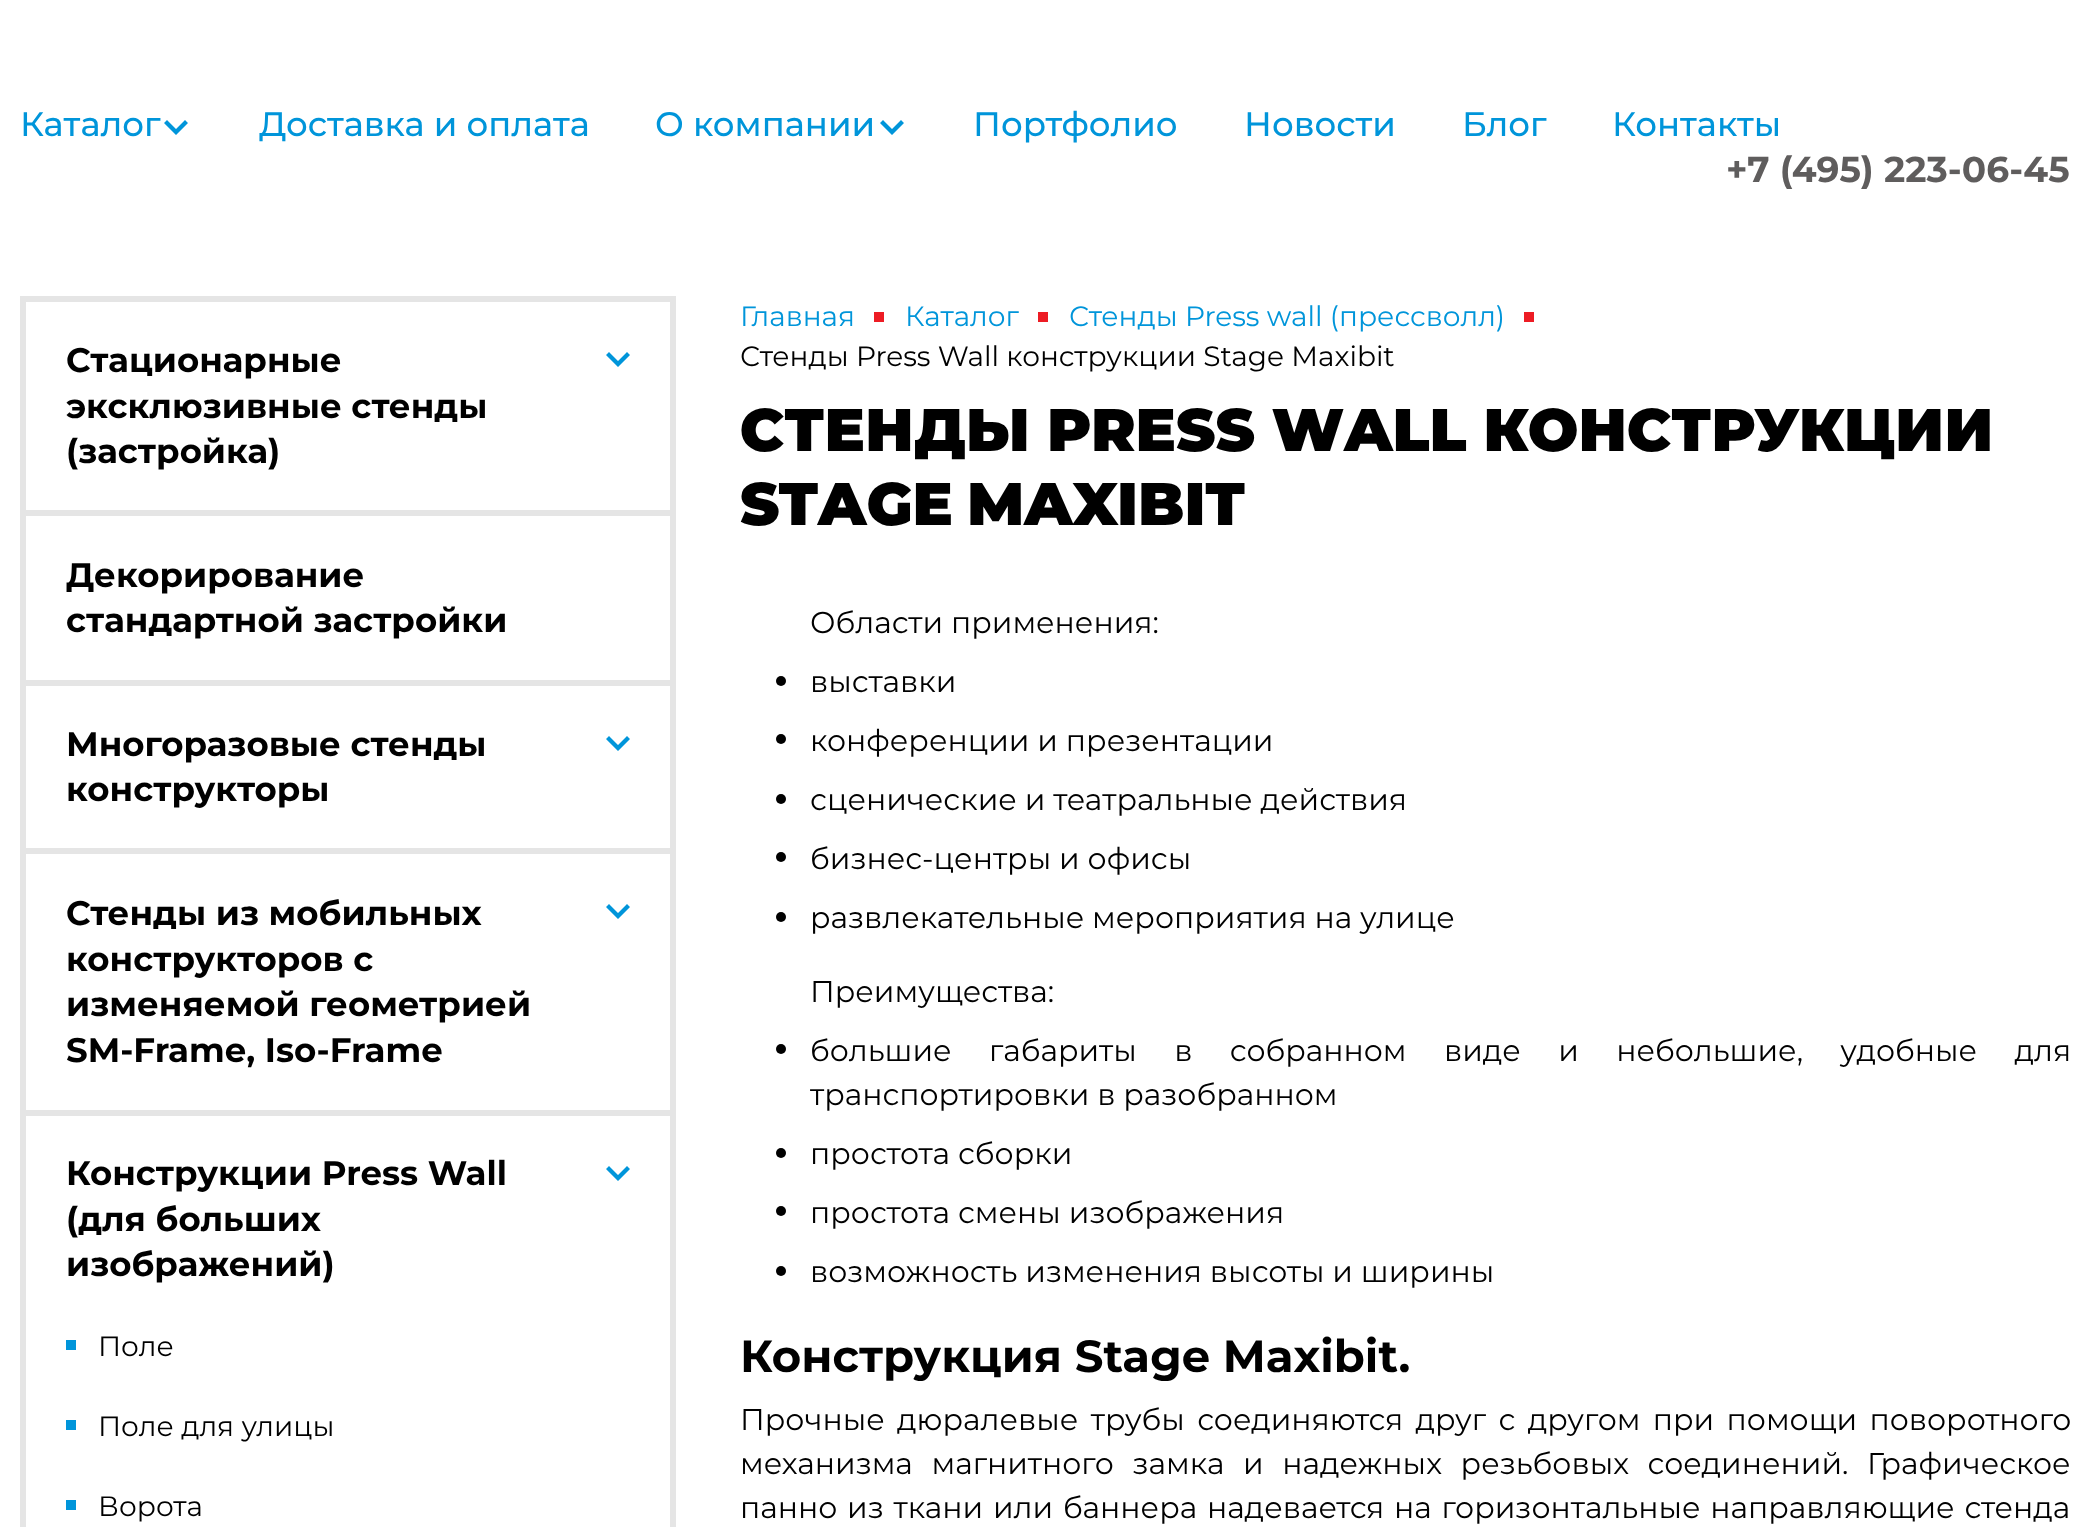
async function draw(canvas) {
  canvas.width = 2089
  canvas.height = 1527
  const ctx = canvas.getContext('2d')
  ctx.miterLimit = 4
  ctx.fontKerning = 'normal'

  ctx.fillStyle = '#fff'
  ctx.fillRect(0, 0, 2089, 1527)
  ctx.font = '500 34px Montserrat'
  ctx.fillStyle = '#0095da'
  ctx.fillText('Каталог', 20, 136)
  ctx.beginPath()
  ctx.moveTo(188, 123)
  ctx.lineTo(185, 120)
  ctx.lineTo(176, 129)
  ctx.lineTo(167, 120)
  ctx.lineTo(164, 123)
  ctx.lineTo(176, 135)
  ctx.closePath()
  ctx.fill()
  ctx.fillText('Доставка и оплата', 259, 136)
  ctx.fillText('О компании', 655, 136)
  ctx.beginPath()
  ctx.moveTo(904, 123)
  ctx.lineTo(901, 120)
  ctx.lineTo(892, 129)
  ctx.lineTo(883, 120)
  ctx.lineTo(880, 123)
  ctx.lineTo(892, 135)
  ctx.closePath()
  ctx.fill()
  ctx.fillText('Портфолио', 973, 136)
  ctx.fillText('Новости', 1244, 136)
  ctx.fillText('Блог', 1462, 136)
  ctx.fillText('Контакты', 1612, 136)
  ctx.font = 'bold 36px Montserrat'
  ctx.fillStyle = '#5f5d5d'
  ctx.fillText('+7 (495) 223-06-45', 1726, 182)
  ctx.strokeStyle = '#e5e5e5'
  ctx.lineWidth = 6
  ctx.strokeRect(23, 299, 650, 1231)
  ctx.fillStyle = '#e5e5e5'
  ctx.fillRect(26, 510, 644, 6)
  ctx.font = 'bold 34px Montserrat'
  ctx.fillStyle = '#000'
  ctx.fillText('Стационарные', 66, 372)
  ctx.fillText('эксклюзивные стенды', 66, 418)
  ctx.fillText('(застройка)', 66, 463)
  ctx.fillStyle = '#0095da'
  ctx.beginPath()
  ctx.moveTo(630, 355)
  ctx.lineTo(627, 352)
  ctx.lineTo(618, 361)
  ctx.lineTo(609, 352)
  ctx.lineTo(606, 355)
  ctx.lineTo(618, 367)
  ctx.closePath()
  ctx.fill()
  ctx.fillStyle = '#e5e5e5'
  ctx.fillRect(26, 680, 644, 6)
  ctx.fillStyle = '#000'
  ctx.fillText('Декорирование', 66, 587)
  ctx.fillText('стандартной застройки', 66, 632)
  ctx.fillStyle = '#e5e5e5'
  ctx.fillRect(26, 848, 644, 6)
  ctx.fillStyle = '#000'
  ctx.fillText('Многоразовые стенды', 66, 756)
  ctx.fillText('конструкторы', 66, 801)
  ctx.fillStyle = '#0095da'
  ctx.beginPath()
  ctx.moveTo(630, 739)
  ctx.lineTo(627, 736)
  ctx.lineTo(618, 745)
  ctx.lineTo(609, 736)
  ctx.lineTo(606, 739)
  ctx.lineTo(618, 751)
  ctx.closePath()
  ctx.fill()
  ctx.fillStyle = '#e5e5e5'
  ctx.fillRect(26, 1110, 644, 6)
  ctx.fillStyle = '#000'
  ctx.fillText('Стенды из мобильных', 66, 925)
  ctx.fillText('конструкторов с', 66, 971)
  ctx.fillText('изменяемой геометрией', 66, 1016)
  ctx.fillText('SM-Frame, Iso-Frame', 66, 1062)
  ctx.fillStyle = '#0095da'
  ctx.beginPath()
  ctx.moveTo(630, 907)
  ctx.lineTo(627, 904)
  ctx.lineTo(618, 913)
  ctx.lineTo(609, 904)
  ctx.lineTo(606, 907)
  ctx.lineTo(618, 919)
  ctx.closePath()
  ctx.fill()
  ctx.fillStyle = '#000'
  ctx.fillText('Конструкции Press Wall', 66, 1185)
  ctx.fillText('(для больших', 66, 1231)
  ctx.fillText('изображений)', 66, 1276)
  ctx.fillStyle = '#0095da'
  ctx.beginPath()
  ctx.moveTo(630, 1169)
  ctx.lineTo(627, 1166)
  ctx.lineTo(618, 1175)
  ctx.lineTo(609, 1166)
  ctx.lineTo(606, 1169)
  ctx.lineTo(618, 1181)
  ctx.closePath()
  ctx.fill()
  ctx.fillRect(66, 1340, 10, 10)
  ctx.font = '28px Montserrat'
  ctx.fillStyle = '#000'
  ctx.fillText('Поле', 98, 1356)
  ctx.fillStyle = '#0095da'
  ctx.fillRect(66, 1420, 10, 10)
  ctx.fillStyle = '#000'
  ctx.fillText('Поле для улицы', 98, 1436)
  ctx.fillStyle = '#0095da'
  ctx.fillRect(66, 1500, 10, 10)
  ctx.fillStyle = '#000'
  ctx.fillText('Ворота', 98, 1516)
  ctx.fillStyle = '#0095da'
  ctx.fillText('Главная', 740, 326)
  ctx.fillStyle = '#ed1c24'
  ctx.fillRect(874, 312, 10, 10)
  ctx.fillStyle = '#0095da'
  ctx.fillText('Каталог', 905, 326)
  ctx.fillStyle = '#ed1c24'
  ctx.fillRect(1038, 312, 10, 10)
  ctx.fillStyle = '#0095da'
  ctx.fillText('Стенды Press wall (прессволл)', 1069, 326)
  ctx.fillStyle = '#ed1c24'
  ctx.fillRect(1524, 312, 10, 10)
  ctx.fillStyle = '#000'
  ctx.fillText('Стенды Press Wall конструкции Stage Maxibit', 740, 366)
  ctx.wordSpacing = '-1px'
  ctx.font = '900 60px Montserrat'
  ctx.fillText('СТЕНДЫ PRESS WALL КОНСТРУКЦИИ', 740, 451)
  ctx.wordSpacing = '-4px'
  ctx.fillText('STAGE MAXIBIT', 740, 525)
  ctx.wordSpacing = '0px'
  ctx.font = '30px Montserrat'
  ctx.fillText('Области применения:', 810, 633)
  ctx.beginPath()
  ctx.arc(781, 681, 5, 0, 2 * Math.PI)
  ctx.fill()
  ctx.fillText('выставки', 810, 692)
  ctx.beginPath()
  ctx.arc(781, 739, 5, 0, 2 * Math.PI)
  ctx.fill()
  ctx.fillText('конференции и презентации', 810, 751)
  ctx.beginPath()
  ctx.arc(781, 799, 5, 0, 2 * Math.PI)
  ctx.fill()
  ctx.fillText('сценические и театральные действия', 810, 810)
  ctx.beginPath()
  ctx.arc(781, 857, 5, 0, 2 * Math.PI)
  ctx.fill()
  ctx.fillText('бизнес-центры и офисы', 810, 869)
  ctx.beginPath()
  ctx.arc(781, 917, 5, 0, 2 * Math.PI)
  ctx.fill()
  ctx.fillText('развлекательные мероприятия на улице', 810, 928)
  ctx.fillText('Преимущества:', 810, 1002)
  ctx.beginPath()
  ctx.arc(781, 1049, 5, 0, 2 * Math.PI)
  ctx.fill()
  ctx.wordSpacing = '29.5px'
  ctx.fillText('большие габариты в собранном виде и небольшие, удобные для', 810, 1061)
  ctx.wordSpacing = '0px'
  ctx.fillText('транспортировки в разобранном', 810, 1105)
  ctx.beginPath()
  ctx.arc(781, 1153, 5, 0, 2 * Math.PI)
  ctx.fill()
  ctx.fillText('простота сборки', 810, 1164)
  ctx.beginPath()
  ctx.arc(781, 1211, 5, 0, 2 * Math.PI)
  ctx.fill()
  ctx.fillText('простота смены изображения', 810, 1223)
  ctx.beginPath()
  ctx.arc(781, 1271, 5, 0, 2 * Math.PI)
  ctx.fill()
  ctx.fillText('возможность изменения высоты и ширины', 810, 1282)
  ctx.font = 'bold 45px Montserrat'
  ctx.fillText('Конструкция Stage Maxibit.', 740, 1372)
  ctx.wordSpacing = '4.5px'
  ctx.font = '30px Montserrat'
  ctx.fillText('Прочные дюралевые трубы соединяются друг с другом при помощи поворотного', 740, 1430)
  ctx.wordSpacing = '10.75px'
  ctx.fillText('механизма магнитного замка и надежных резьбовых соединений. Графическое', 740, 1474)
  ctx.wordSpacing = '1.9px'
  ctx.fillText('панно из ткани или баннера надевается на горизонтальные направляющие стенда', 740, 1518)
}

draw(document.querySelector('canvas'))
